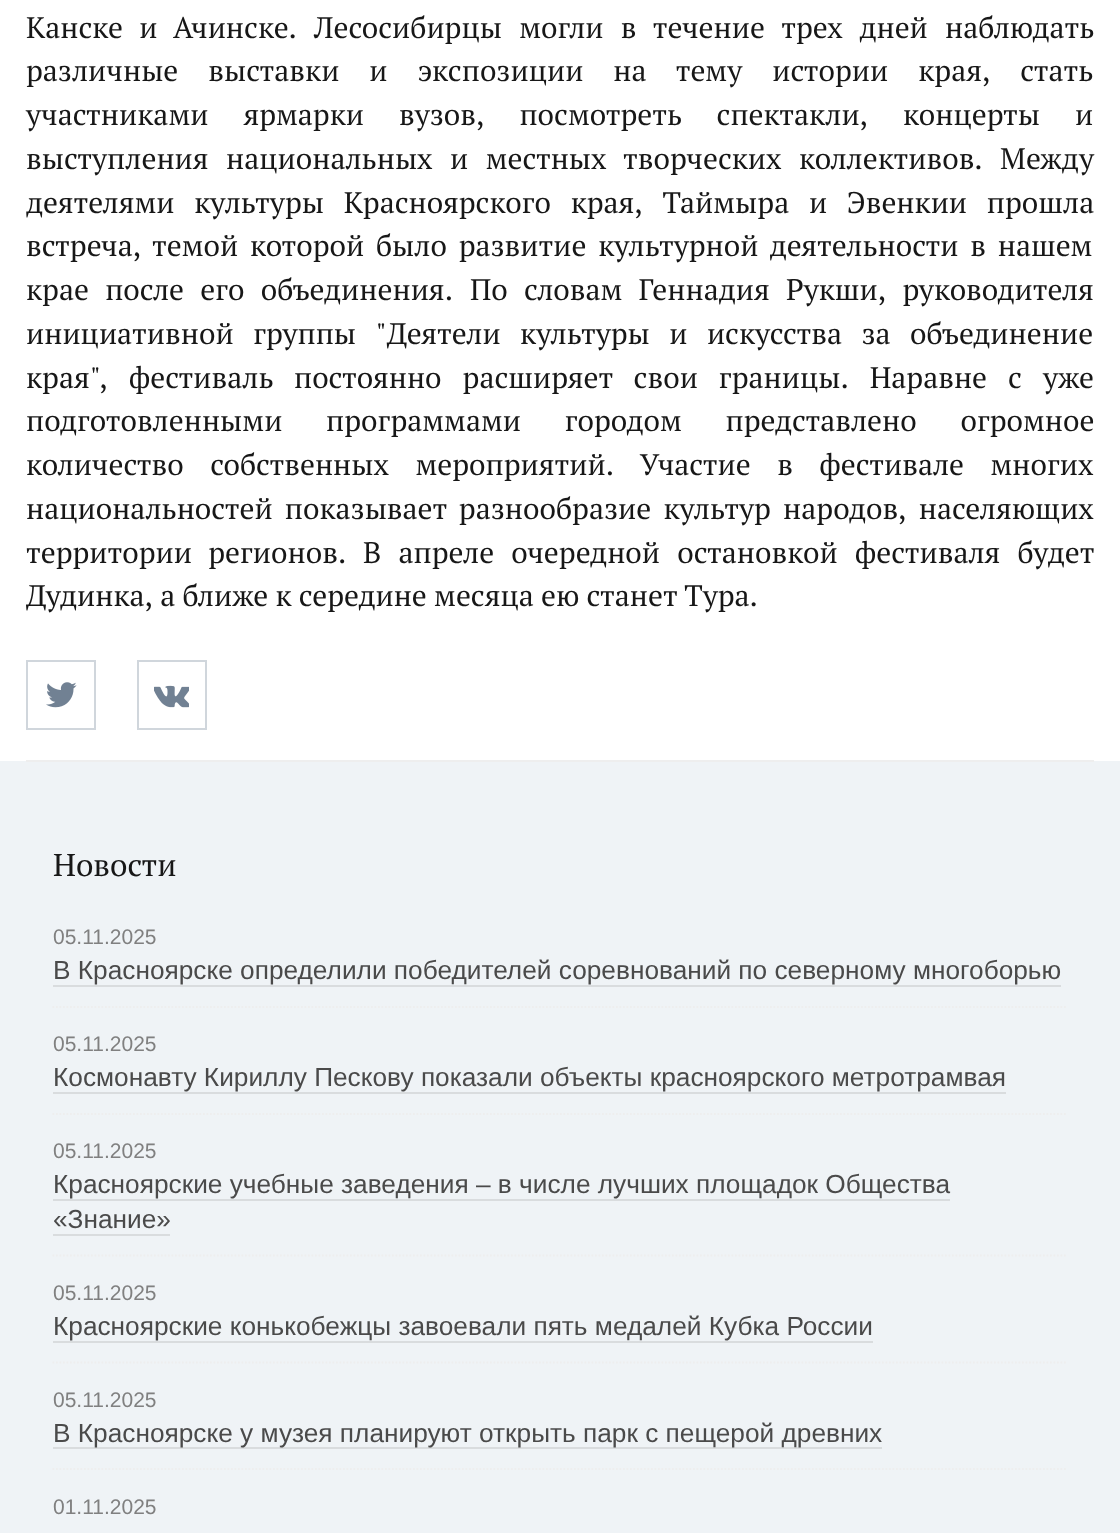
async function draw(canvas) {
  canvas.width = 1120
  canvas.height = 1533
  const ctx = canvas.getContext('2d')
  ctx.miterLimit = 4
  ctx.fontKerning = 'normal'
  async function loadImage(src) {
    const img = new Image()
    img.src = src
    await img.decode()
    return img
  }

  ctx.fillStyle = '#eff3f6'
  ctx.fillRect(0, 0, 1120, 1533)
  ctx.fillStyle = '#fff'
  ctx.fillRect(0, 0, 1120, 761)
  ctx.wordSpacing = '9px'
  ctx.font = '29.75px PT Serif'
  ctx.fillStyle = '#171717'
  ctx.fillText('Канске и Ачинске.', 26, 38)
  ctx.wordSpacing = '10px'
  ctx.fillText('Лесосибирцы могли в течение трех дней наблюдать', 314, 38)
  ctx.wordSpacing = '22.75px'
  ctx.fillText('различные выставки и экспозиции на тему истории края, стать', 26, 81)
  ctx.wordSpacing = '27.75px'
  ctx.fillText('участниками ярмарки вузов, посмотреть спектакли, концерты и', 26, 125)
  ctx.wordSpacing = '10.25px'
  ctx.fillText('выступления национальных и местных творческих коллективов. Между', 26, 169)
  ctx.wordSpacing = '12.5px'
  ctx.fillText('деятелями культуры Красноярского края, Таймыра и Эвенкии прошла', 26, 213)
  ctx.wordSpacing = '4.5px'
  ctx.fillText('встреча, темой которой было развитие культурной деятельности в нашем', 26, 256)
  ctx.wordSpacing = '9px'
  ctx.fillText('крае после его объединения.', 26, 300)
  ctx.fillText('По словам Геннадия Рукши, руководителя', 470, 300)
  ctx.wordSpacing = '12.25px'
  ctx.fillText('инициативной группы "Деятели культуры и искусства за объединение', 26, 344)
  ctx.wordSpacing = '13.75px'
  ctx.fillText('края", фестиваль постоянно расширяет свои границы. Наравне с уже', 26, 388)
  ctx.wordSpacing = '36.5px'
  ctx.fillText('подготовленными программами городом представлено огромное', 26, 431)
  ctx.wordSpacing = '19.25px'
  ctx.fillText('количество собственных мероприятий. Участие в фестивале многих', 26, 475)
  ctx.wordSpacing = '5px'
  ctx.fillText('национальностей показывает разнообразие культур народов, населяющих', 26, 519)
  ctx.wordSpacing = '9px'
  ctx.fillText('территории регионов.', 26, 563)
  ctx.wordSpacing = '10px'
  ctx.fillText('В апреле очередной остановкой фестиваля будет', 363, 563)
  ctx.wordSpacing = '0px'
  ctx.fillText('Дудинка, а ближе к середине месяца ею станет Тура.', 26, 606)
  ctx.drawImage(await loadImage('image0.png'), 46, 682, 31, 26)
  ctx.strokeStyle = '#d0d6dc'
  ctx.lineWidth = 2
  ctx.strokeRect(27, 661, 68, 68)
  ctx.drawImage(await loadImage('image1.png'), 154, 685, 35, 23)
  ctx.strokeRect(138, 661, 68, 68)
  ctx.fillStyle = '#eee'
  ctx.fillRect(26, 760, 1068, 2)
  ctx.font = '31.5px PT Serif'
  ctx.fillStyle = '#171717'
  ctx.fillText('Новости', 53, 876)
  ctx.font = '21px Liberation Sans'
  ctx.fillStyle = '#808080'
  ctx.fillText('05.11.2025', 53, 944)
  ctx.font = '26.25px Liberation Sans'
  ctx.fillStyle = '#4a4a4a'
  ctx.fillText('В Красноярске определили победителей соревнований по северному многоборью', 53, 979)
  ctx.fillStyle = '#d9dcde'
  ctx.fillRect(53, 985, 1008, 2)
  ctx.beginPath()
  ctx.moveTo(52.5, 1007)
  ctx.lineTo(1067.5, 1007)
  ctx.strokeStyle = '#eee'
  ctx.lineWidth = 1.8
  ctx.setLineDash([1.75, 1.75])
  ctx.stroke()
  ctx.font = '21px Liberation Sans'
  ctx.fillStyle = '#808080'
  ctx.fillText('05.11.2025', 53, 1051)
  ctx.font = '26.25px Liberation Sans'
  ctx.fillStyle = '#4a4a4a'
  ctx.fillText('Космонавту Кириллу Пескову показали объекты красноярского метротрамвая', 53, 1086)
  ctx.fillStyle = '#d9dcde'
  ctx.fillRect(53, 1092, 953, 2)
  ctx.beginPath()
  ctx.moveTo(52.5, 1114)
  ctx.lineTo(1067.5, 1114)
  ctx.stroke()
  ctx.font = '21px Liberation Sans'
  ctx.fillStyle = '#808080'
  ctx.fillText('05.11.2025', 53, 1158)
  ctx.font = '26.25px Liberation Sans'
  ctx.fillStyle = '#4a4a4a'
  ctx.fillText('Красноярские учебные заведения – в числе лучших площадок Общества', 53, 1193)
  ctx.fillStyle = '#d9dcde'
  ctx.fillRect(53, 1199, 897, 2)
  ctx.fillStyle = '#4a4a4a'
  ctx.fillText('«Знание»', 53, 1228)
  ctx.fillStyle = '#d9dcde'
  ctx.fillRect(53, 1234, 117, 2)
  ctx.beginPath()
  ctx.moveTo(52.5, 1255.5)
  ctx.lineTo(1067.5, 1255.5)
  ctx.stroke()
  ctx.font = '21px Liberation Sans'
  ctx.fillStyle = '#808080'
  ctx.fillText('05.11.2025', 53, 1300)
  ctx.font = '26.25px Liberation Sans'
  ctx.fillStyle = '#4a4a4a'
  ctx.fillText('Красноярские конькобежцы завоевали пять медалей Кубка России', 53, 1335)
  ctx.fillStyle = '#d9dcde'
  ctx.fillRect(53, 1341, 820, 2)
  ctx.beginPath()
  ctx.moveTo(52.5, 1362.5)
  ctx.lineTo(1067.5, 1362.5)
  ctx.stroke()
  ctx.font = '21px Liberation Sans'
  ctx.fillStyle = '#808080'
  ctx.fillText('05.11.2025', 53, 1407)
  ctx.fillStyle = '#d9dcde'
  ctx.fillRect(53, 1447, 829, 2)
  ctx.font = '26.25px Liberation Sans'
  ctx.fillStyle = '#4a4a4a'
  ctx.fillText('В Красноярске у музея планируют открыть парк с пещерой древних', 53, 1442)
  ctx.beginPath()
  ctx.moveTo(52.5, 1469)
  ctx.lineTo(1067.5, 1469)
  ctx.stroke()
  ctx.font = '21px Liberation Sans'
  ctx.fillStyle = '#808080'
  ctx.fillText('01.11.2025', 53, 1514)
}

draw(document.querySelector('canvas'))
